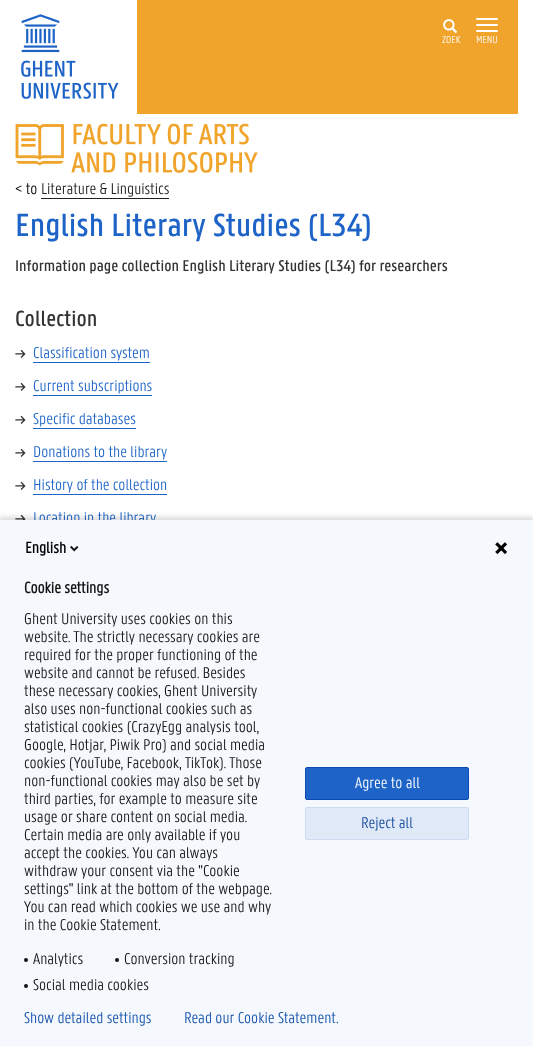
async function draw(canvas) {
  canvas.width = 533
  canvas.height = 1046
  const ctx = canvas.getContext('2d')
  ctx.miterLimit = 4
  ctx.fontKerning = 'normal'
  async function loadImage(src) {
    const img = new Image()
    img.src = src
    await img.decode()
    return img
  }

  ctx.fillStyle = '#fff'
  ctx.fillRect(0, 0, 533, 1046)
  ctx.fillStyle = '#f1a42b'
  ctx.fillRect(137, 0, 381, 114)
  ctx.drawImage(await loadImage('image0.png'), 21, 14, 98, 85)
  ctx.drawImage(await loadImage('image1.png'), 443, 19, 15, 14)
  ctx.font = '300 11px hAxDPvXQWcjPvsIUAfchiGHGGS'
  ctx.fillStyle = '#fff'
  ctx.fillText('ZOEK', 442, 43)
  ctx.beginPath()
  ctx.roundRect(476, 18, 22, 2, 1)
  ctx.fill()
  ctx.beginPath()
  ctx.roundRect(476, 24, 22, 2, 1)
  ctx.fill()
  ctx.beginPath()
  ctx.roundRect(476, 30, 22, 2, 1)
  ctx.fill()
  ctx.fillText('MENU', 476, 43)
  ctx.drawImage(await loadImage('image2.png'), 15, 123, 243, 50)
  ctx.font = '300 17px hAxDPvXQWcjPvsIUAfchiGHGGS'
  ctx.fillStyle = '#000'
  ctx.fillText('< to', 15, 194)
  ctx.fillStyle = '#202020'
  ctx.fillText('Literature & Linguistics', 41, 194)
  ctx.fillRect(41, 198, 128, 1)
  ctx.font = '500 35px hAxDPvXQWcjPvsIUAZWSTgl'
  ctx.fillStyle = '#1e64c8'
  ctx.fillText('English Literary Studies (L34)', 15, 236)
  ctx.font = '500 17px hAxDPvXQWcjPvsIUAZWSTgl'
  ctx.fillStyle = '#333'
  ctx.fillText('Information page collection English Literary Studies (L34) for researchers', 15, 271)
  ctx.font = '500 24px hAxDPvXQWcjPvsIUAZWSTgl'
  ctx.fillText('Collection', 15, 326)
  ctx.font = '500 16px hAxDPvXQWcjPvsIUAZWSTgl'
  ctx.fillText('→', 15, 359)
  ctx.font = '300 17px hAxDPvXQWcjPvsIUAfchiGHGGS'
  ctx.fillStyle = '#1e64c8'
  ctx.fillText('Classification system', 33, 358)
  ctx.fillRect(33, 362, 117, 1)
  ctx.font = '500 16px hAxDPvXQWcjPvsIUAZWSTgl'
  ctx.fillStyle = '#333'
  ctx.fillText('→', 15, 392)
  ctx.font = '300 17px hAxDPvXQWcjPvsIUAfchiGHGGS'
  ctx.fillStyle = '#1e64c8'
  ctx.fillText('Current subscriptions', 33, 391)
  ctx.fillRect(33, 395, 119, 1)
  ctx.font = '500 16px hAxDPvXQWcjPvsIUAZWSTgl'
  ctx.fillStyle = '#333'
  ctx.fillText('→', 15, 425)
  ctx.font = '300 17px hAxDPvXQWcjPvsIUAfchiGHGGS'
  ctx.fillStyle = '#1e64c8'
  ctx.fillText('Specific databases', 33, 424)
  ctx.fillRect(33, 428, 103, 1)
  ctx.font = '500 16px hAxDPvXQWcjPvsIUAZWSTgl'
  ctx.fillStyle = '#333'
  ctx.fillText('→', 15, 458)
  ctx.font = '300 17px hAxDPvXQWcjPvsIUAfchiGHGGS'
  ctx.fillStyle = '#1e64c8'
  ctx.fillText('Donations to the library', 33, 457)
  ctx.fillRect(33, 461, 134, 1)
  ctx.font = '500 16px hAxDPvXQWcjPvsIUAZWSTgl'
  ctx.fillStyle = '#333'
  ctx.fillText('→', 15, 491)
  ctx.font = '300 17px hAxDPvXQWcjPvsIUAfchiGHGGS'
  ctx.fillStyle = '#1e64c8'
  ctx.fillText('History of the collection', 33, 490)
  ctx.fillRect(33, 494, 134, 1)
  ctx.font = '500 16px hAxDPvXQWcjPvsIUAZWSTgl'
  ctx.fillStyle = '#333'
  ctx.fillText('→', 15, 524)
  ctx.font = '300 17px hAxDPvXQWcjPvsIUAfchiGHGGS'
  ctx.fillStyle = '#1e64c8'
  ctx.fillText('Location in the library', 33, 523)
  ctx.fillStyle = '#00000024'
  ctx.filter = 'blur(2.5px)'
  ctx.beginPath()
  ctx.rect(-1, 517, 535, 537)
  ctx.fill()
  ctx.filter = 'none'
  ctx.fillStyle = '#f5f8fc'
  ctx.fillRect(0, 520, 533, 526)
  ctx.font = 'bold 17px hAxDPvXQWcjPvsIUAfchiGHGGS'
  ctx.fillStyle = '#000'
  ctx.fillText('English', 25, 553)
  ctx.drawImage(await loadImage('image3.png'), 70, 545, 9, 7)
  ctx.drawImage(await loadImage('image4.png'), 495, 542, 13, 13)
  ctx.fillStyle = '#131313'
  ctx.fillText('Cookie settings', 24, 593)
  ctx.font = '300 17px hAxDPvXQWcjPvsIUAfchiGHGGS'
  ctx.fillText('Ghent University uses cookies on this', 24, 624)
  ctx.fillText('website. The strictly necessary cookies are', 24, 642)
  ctx.fillText('required for the proper functioning of the', 24, 660)
  ctx.fillText('website and cannot be refused. Besides', 24, 678)
  ctx.fillText('these necessary cookies, Ghent University', 24, 696)
  ctx.fillText('also uses non-functional cookies such as', 24, 714)
  ctx.fillText('statistical cookies (CrazyEgg analysis tool,', 24, 732)
  ctx.fillText('Google, Hotjar, Piwik Pro) and social media', 24, 750)
  ctx.fillText('cookies (YouTube, Facebook, TikTok). Those', 24, 768)
  ctx.fillText('non-functional cookies may also be set by', 24, 786)
  ctx.fillText('third parties, for example to measure site', 24, 804)
  ctx.fillText('usage or share content on social media.', 24, 822)
  ctx.fillText('Certain media are only available if you', 24, 840)
  ctx.fillText('accept the cookies. You can always', 24, 858)
  ctx.fillText('withdraw your consent via the "Cookie', 24, 876)
  ctx.fillText('settings" link at the bottom of the webpage.', 24, 894)
  ctx.fillText('You can read which cookies we use and why', 24, 912)
  ctx.fillText('in the Cookie Statement.', 24, 930)
  ctx.beginPath()
  ctx.arc(26, 960, 2, 0, 2 * Math.PI)
  ctx.fill()
  ctx.fillText('Analytics', 33, 964)
  ctx.beginPath()
  ctx.arc(117, 960, 2, 0, 2 * Math.PI)
  ctx.fill()
  ctx.fillText('Conversion tracking', 124, 964)
  ctx.beginPath()
  ctx.arc(26, 986, 2, 0, 2 * Math.PI)
  ctx.fill()
  ctx.fillText('Social media cookies', 33, 990)
  ctx.fillStyle = '#1e64c8'
  ctx.beginPath()
  ctx.roundRect(305.5, 767.5, 163, 32, 1.5)
  ctx.fill()
  ctx.strokeStyle = '#0b4bb3'
  ctx.stroke()
  ctx.fillStyle = '#fff'
  ctx.fillText('Agree to all', 355, 788)
  ctx.fillStyle = '#e0e9f7'
  ctx.beginPath()
  ctx.roundRect(305.5, 807.5, 163, 32, 1.5)
  ctx.fill()
  ctx.strokeStyle = '#cddcf2'
  ctx.stroke()
  ctx.fillStyle = '#114799'
  ctx.fillText('Reject all', 361, 828)
  ctx.fillStyle = '#1351ac'
  ctx.fillText('Show detailed settings', 24, 1023)
  ctx.fillText('Read our Cookie Statement.', 184, 1023)
}

draw(document.querySelector('canvas'))
